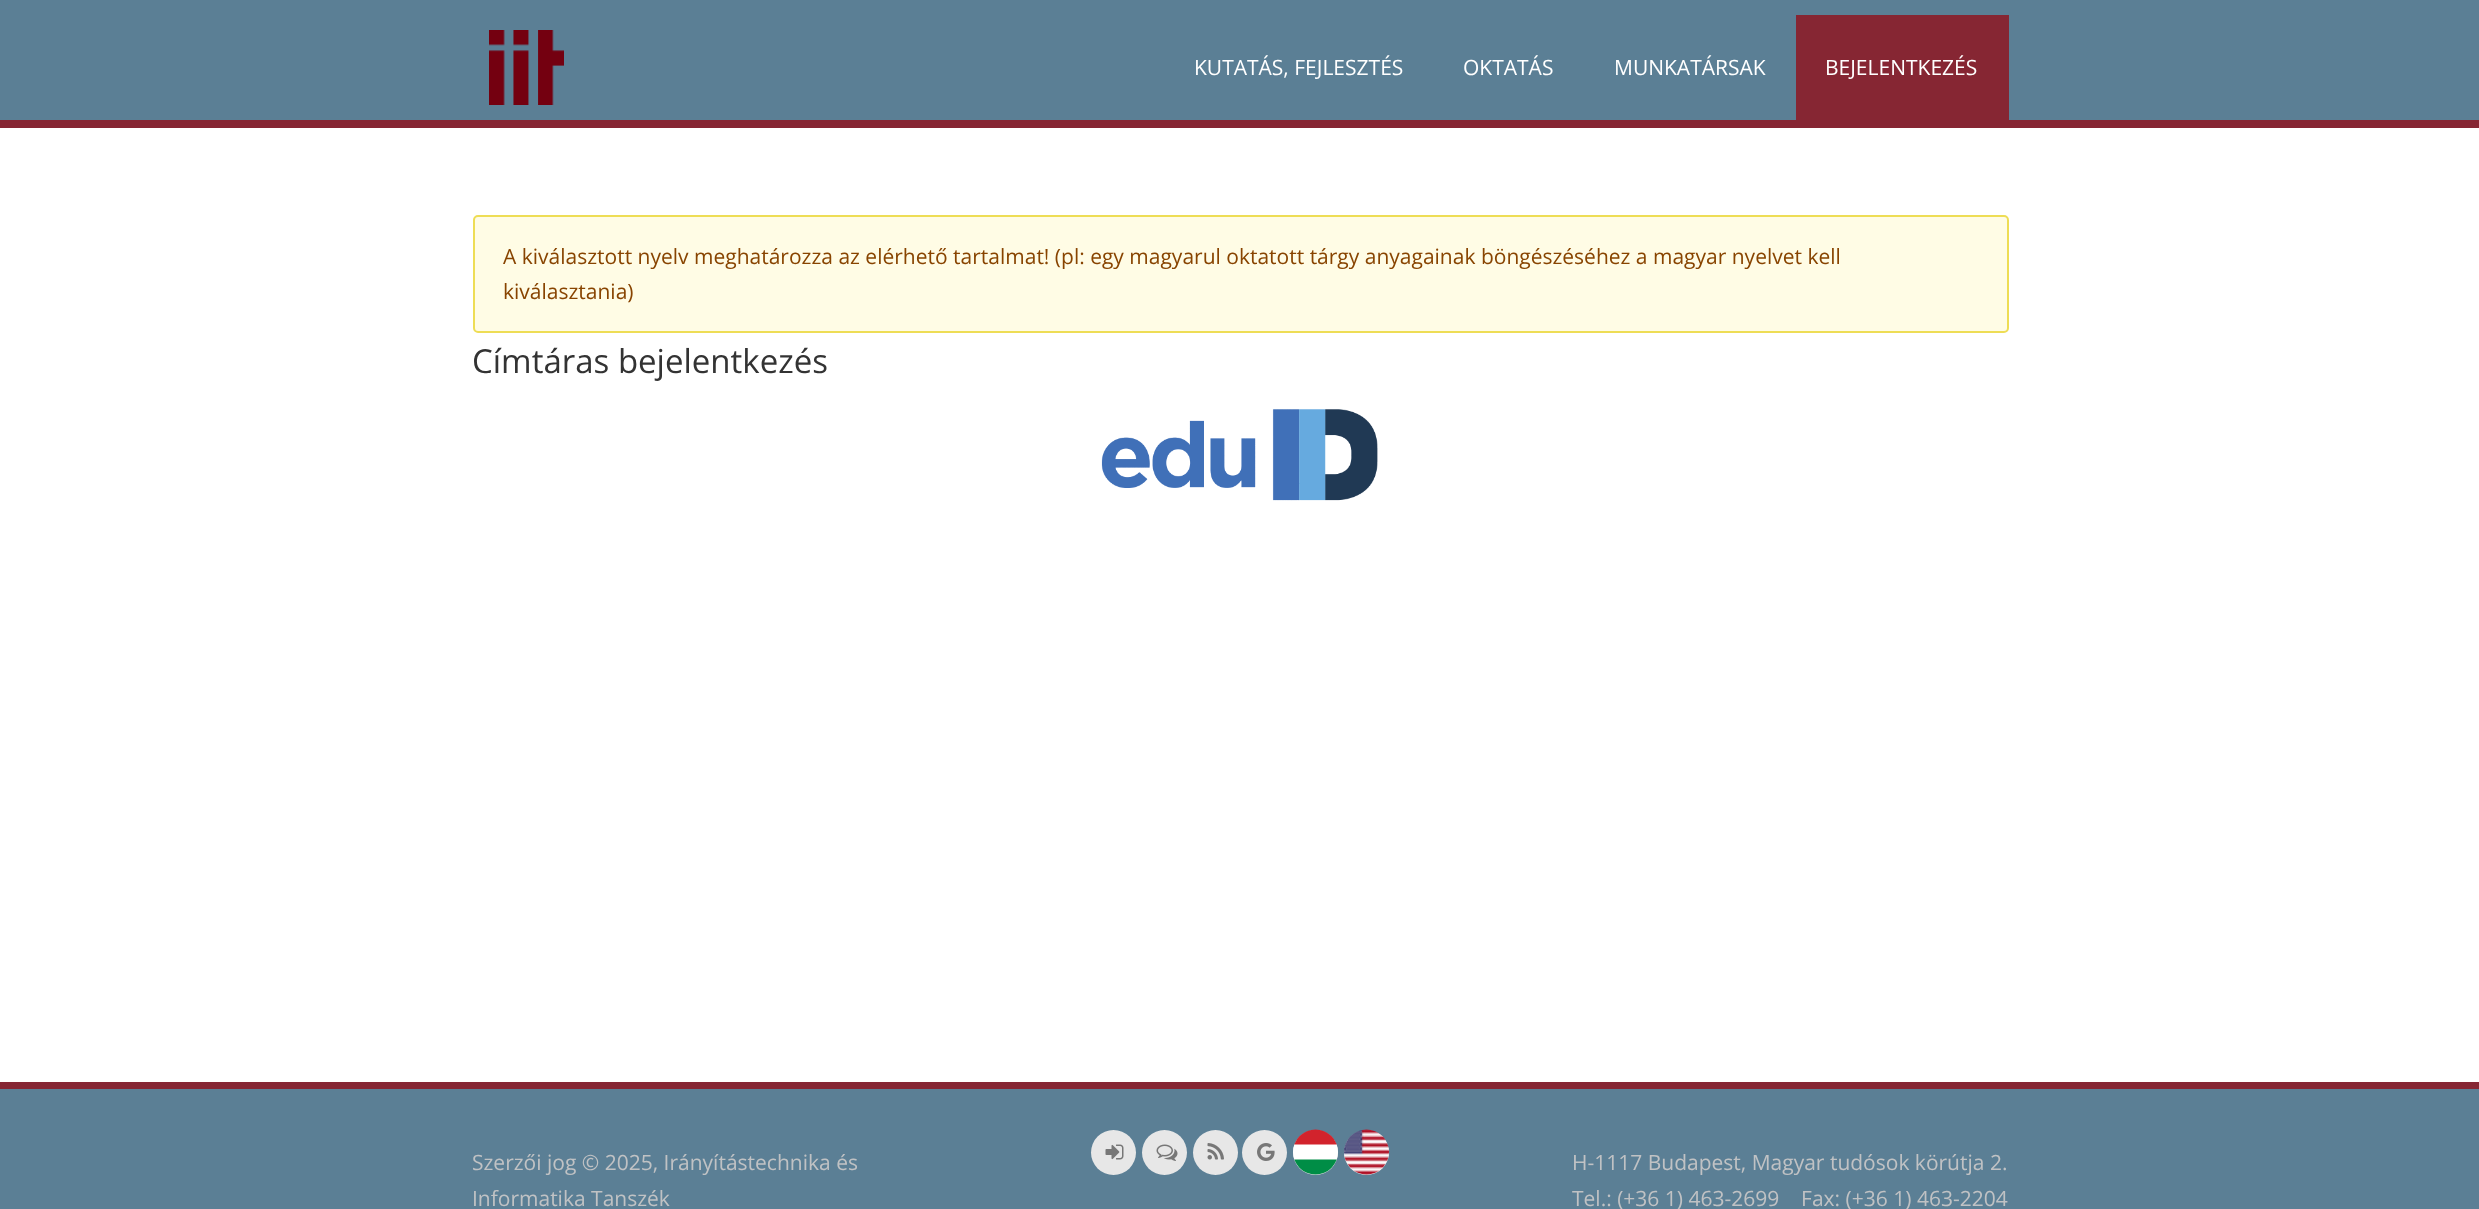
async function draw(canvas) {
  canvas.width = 2479
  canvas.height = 1209
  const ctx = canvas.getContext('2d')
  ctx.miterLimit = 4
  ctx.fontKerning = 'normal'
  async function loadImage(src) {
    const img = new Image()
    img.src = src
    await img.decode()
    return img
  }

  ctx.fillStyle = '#fff'
  ctx.fillRect(0, 0, 2479, 1209)
  ctx.fillStyle = '#5b7f95'
  ctx.fillRect(0, 0, 2479, 120)
  ctx.fillStyle = '#862633'
  ctx.fillRect(0, 120, 2479, 8)
  ctx.drawImage(await loadImage('image0.png'), 489, 30, 75, 75)
  ctx.font = '21px Open Sans'
  ctx.fillStyle = '#fff'
  ctx.fillText('KUTATÁS, FEJLESZTÉS', 1194, 75)
  ctx.fillText('OKTATÁS', 1463, 75)
  ctx.fillText('MUNKATÁRSAK', 1614, 75)
  ctx.fillStyle = '#862633'
  ctx.fillRect(1796, 15, 213, 105)
  ctx.fillStyle = '#fff'
  ctx.fillText('BEJELENTKEZÉS', 1825, 75)
  ctx.fillStyle = '#fffce5'
  ctx.beginPath()
  ctx.roundRect(474, 216, 1534, 116, 4)
  ctx.fill()
  ctx.strokeStyle = '#ed5'
  ctx.lineWidth = 2
  ctx.stroke()
  ctx.fillStyle = '#840'
  ctx.fillText('A kiválasztott nyelv meghatározza az elérhető tartalmat! (pl: egy magyarul oktatott tárgy anyagainak böngészéséhez a magyar nyelvet kell', 503, 264)
  ctx.fillText('kiválasztania)', 503, 299)
  ctx.font = '33px Open Sans'
  ctx.fillStyle = '#333'
  ctx.fillText('Címtáras bejelentkezés', 472, 373)
  ctx.drawImage(await loadImage('image1.png'), 1101, 409, 277, 92)
  ctx.fillStyle = '#5b7f95'
  ctx.fillRect(0, 1089, 2479, 120)
  ctx.fillStyle = '#862633'
  ctx.fillRect(0, 1082, 2479, 7)
  ctx.font = '21px Open Sans'
  ctx.fillStyle = '#c0c2c4'
  ctx.fillText('Szerzői jog © 2025, Irányítástechnika és', 472, 1170)
  ctx.fillText('Informatika Tanszék', 472, 1206)
  ctx.fillStyle = '#e7e7e7'
  ctx.beginPath()
  ctx.arc(1113.5, 1152.5, 22.5, 0, 2 * Math.PI)
  ctx.fill()
  ctx.drawImage(await loadImage('image2.png'), 1105, 1144, 19, 16)
  ctx.beginPath()
  ctx.arc(1164.5, 1152.5, 22.5, 0, 2 * Math.PI)
  ctx.fill()
  ctx.drawImage(await loadImage('image3.png'), 1156, 1144, 22, 17)
  ctx.beginPath()
  ctx.arc(1215.5, 1152.5, 22.5, 0, 2 * Math.PI)
  ctx.fill()
  ctx.drawImage(await loadImage('image4.png'), 1207, 1143, 17, 17)
  ctx.beginPath()
  ctx.arc(1264.5, 1152.5, 22.5, 0, 2 * Math.PI)
  ctx.fill()
  ctx.drawImage(await loadImage('image5.png'), 1257, 1143, 18, 18)
  ctx.beginPath()
  ctx.arc(1315.5, 1152.5, 22.5, 0, 2 * Math.PI)
  ctx.fill()
  ctx.drawImage(await loadImage('image6.png'), 1293, 1129, 45, 46)
  ctx.beginPath()
  ctx.arc(1366.5, 1152.5, 22.5, 0, 2 * Math.PI)
  ctx.fill()
  ctx.drawImage(await loadImage('image7.png'), 1344, 1129, 45, 46)
  ctx.fillStyle = '#c0c2c4'
  ctx.fillText('H-1117 Budapest, Magyar tudósok körútja 2.', 1572, 1170)
  ctx.fillText('Tel.: (+36 1) 463-2699    Fax: (+36 1) 463-2204', 1572, 1206)
}

draw(document.querySelector('canvas'))
